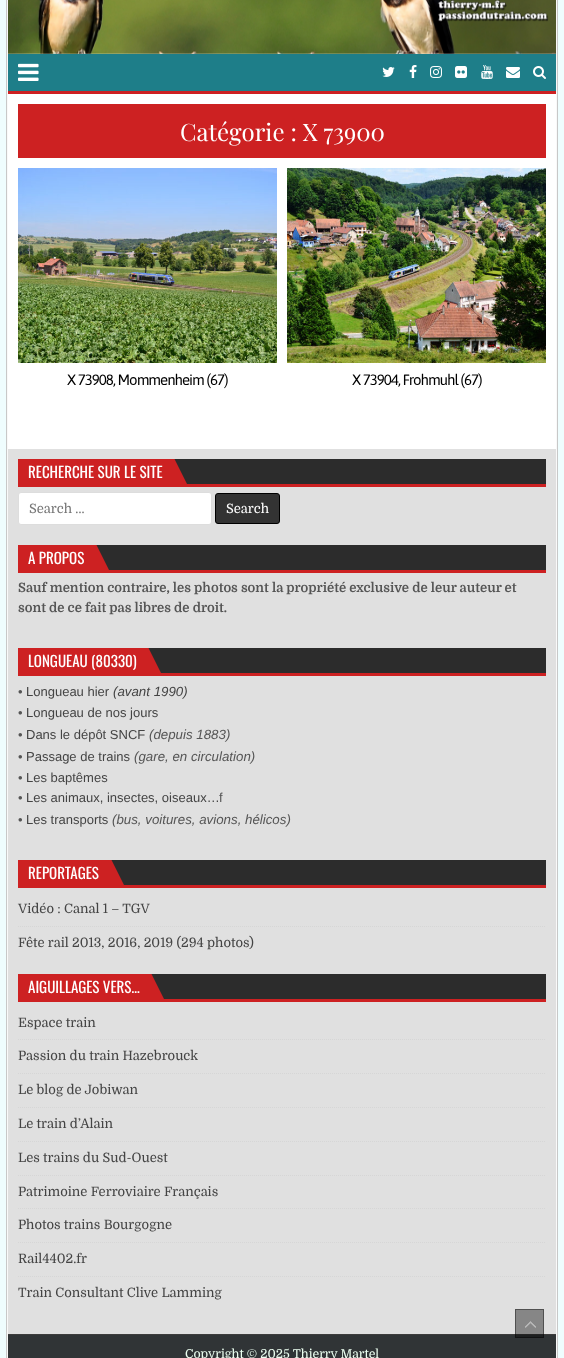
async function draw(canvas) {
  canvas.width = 564
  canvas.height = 1358
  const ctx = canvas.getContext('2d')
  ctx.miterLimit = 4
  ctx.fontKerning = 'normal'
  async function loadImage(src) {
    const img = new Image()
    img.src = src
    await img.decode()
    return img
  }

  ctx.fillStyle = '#effdfe'
  ctx.fillRect(0, 0, 564, 1358)
  ctx.strokeStyle = '#c8c8c8'
  ctx.strokeRect(6.5, -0.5, 551, 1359)
  ctx.strokeStyle = '#f9f9f9'
  ctx.strokeRect(7.5, -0.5, 549, 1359)
  ctx.drawImage(await loadImage('image0.png'), 8, 0, 548, 54)
  ctx.fillStyle = '#1e7e89'
  ctx.fillRect(8, 54, 548, 37)
  ctx.fillStyle = '#cd2122'
  ctx.fillRect(8, 91, 548, 3)
  ctx.drawImage(await loadImage('image1.png'), 18, 63, 21, 18)
  ctx.drawImage(await loadImage('image2.png'), 382, 67, 13, 10)
  ctx.drawImage(await loadImage('image3.png'), 409, 65, 8, 13)
  ctx.drawImage(await loadImage('image4.png'), 430, 66, 12, 12)
  ctx.drawImage(await loadImage('image5.png'), 455, 66, 12, 12)
  ctx.drawImage(await loadImage('image6.png'), 481, 65, 12, 14)
  ctx.drawImage(await loadImage('image7.png'), 506, 67, 14, 11)
  ctx.drawImage(await loadImage('image8.png'), 533, 66, 13, 13)
  ctx.fillStyle = '#fff'
  ctx.fillRect(8, 94, 548, 355)
  ctx.fillStyle = '#cd2122'
  ctx.fillRect(18, 104, 528, 54)
  ctx.font = '24px Playfair Display'
  ctx.fillStyle = '#fff'
  ctx.fillText('Catégorie : X 73900', 180, 141)
  ctx.drawImage(await loadImage('image9.png'), 18, 168, 259, 195)
  ctx.letterSpacing = '-1px'
  ctx.font = '15px Asap'
  ctx.fillStyle = '#000'
  ctx.fillText('X 73908, Mommenheim (67)', 67, 385)
  ctx.drawImage(await loadImage('image10.png'), 287, 168, 259, 195)
  ctx.fillText('X 73904, Frohmuhl (67)', 352, 385)
  ctx.fillStyle = '#e0e0e0'
  ctx.fillRect(8, 449, 548, 885)
  ctx.fillStyle = '#868686'
  ctx.fillRect(515, 1309, 29, 25)
  ctx.fillStyle = '#2c2c2c'
  ctx.fillRect(174, 459, 372, 25)
  ctx.fillStyle = '#cd2122'
  ctx.fillRect(18, 484, 528, 3)
  ctx.fillRect(18, 459, 154, 25)
  ctx.letterSpacing = '0px'
  ctx.font = '15px Oswald'
  ctx.fillStyle = '#fff'
  ctx.fillText('RECHERCHE SUR LE SITE', 28, 478)
  ctx.save()
  ctx.beginPath()
  ctx.rect(18, 459, 528, 25)
  ctx.clip()
  ctx.fillStyle = '#cd2122'
  ctx.beginPath()
  ctx.moveTo(172, 484)
  ctx.lineTo(172, 454)
  ctx.lineTo(187, 484)
  ctx.closePath()
  ctx.fill()
  ctx.restore()
  ctx.beginPath()
  ctx.roundRect(18.5, 492.5, 193, 32, 2.5)
  ctx.fill()
  ctx.strokeStyle = '#ddd'
  ctx.stroke()
  ctx.font = '13px Domine'
  ctx.fillStyle = '#757575'
  ctx.fillText('Search …', 29, 513)
  ctx.fillStyle = '#333'
  ctx.beginPath()
  ctx.roundRect(215.5, 493.5, 64, 30, 2.5)
  ctx.fill()
  ctx.strokeStyle = '#000'
  ctx.stroke()
  ctx.fillStyle = '#fff'
  ctx.fillText('Search', 226, 513)
  ctx.fillStyle = '#2c2c2c'
  ctx.fillRect(96, 545, 450, 25)
  ctx.fillStyle = '#cd2122'
  ctx.fillRect(18, 570, 528, 3)
  ctx.fillRect(18, 545, 76, 25)
  ctx.font = '15px Oswald'
  ctx.fillStyle = '#fff'
  ctx.fillText('A PROPOS', 28, 564)
  ctx.save()
  ctx.beginPath()
  ctx.rect(18, 545, 528, 25)
  ctx.clip()
  ctx.fillStyle = '#cd2122'
  ctx.beginPath()
  ctx.moveTo(94, 570)
  ctx.lineTo(94, 540)
  ctx.lineTo(109, 570)
  ctx.closePath()
  ctx.fill()
  ctx.restore()
  ctx.font = 'bold 13px Domine'
  ctx.fillStyle = '#555'
  ctx.fillText('Sauf mention contraire, les photos sont la propriété exclusive de leur auteur et', 18, 592)
  ctx.fillText('sont de ce fait pas libres de droit.', 18, 612)
  ctx.fillStyle = '#2c2c2c'
  ctx.fillRect(148, 648, 398, 25)
  ctx.fillStyle = '#cd2122'
  ctx.fillRect(18, 673, 528, 3)
  ctx.fillRect(18, 648, 128, 25)
  ctx.font = '15px Oswald'
  ctx.fillStyle = '#fff'
  ctx.fillText('LONGUEAU (80330)', 28, 667)
  ctx.save()
  ctx.beginPath()
  ctx.rect(18, 648, 528, 25)
  ctx.clip()
  ctx.fillStyle = '#cd2122'
  ctx.beginPath()
  ctx.moveTo(146, 673)
  ctx.lineTo(146, 643)
  ctx.lineTo(161, 673)
  ctx.closePath()
  ctx.fill()
  ctx.restore()
  ctx.font = '13px Liberation Sans'
  ctx.fillStyle = '#555'
  ctx.fillText('•', 18, 696)
  ctx.fillStyle = '#444'
  ctx.fillText('Longueau hier', 26, 696)
  ctx.font = 'italic 13.3px Liberation Sans'
  ctx.fillText('(avant 1990)', 113, 696)
  ctx.font = '13px Liberation Sans'
  ctx.fillStyle = '#555'
  ctx.fillText('•', 18, 717)
  ctx.fillStyle = '#444'
  ctx.fillText('Longueau de nos jours', 26, 717)
  ctx.fillStyle = '#555'
  ctx.fillText('•', 18, 739)
  ctx.fillStyle = '#444'
  ctx.fillText('Dans le dépôt SNCF', 26, 739)
  ctx.font = 'italic 13.3px Liberation Sans'
  ctx.fillStyle = '#555'
  ctx.fillText('(depuis 1883)', 149, 739)
  ctx.font = '13px Liberation Sans'
  ctx.fillText('•', 18, 761)
  ctx.fillStyle = '#444'
  ctx.fillText('Passage de trains', 26, 761)
  ctx.font = 'italic 13.3px Liberation Sans'
  ctx.fillStyle = '#555'
  ctx.fillText('(gare, en circulation)', 134, 761)
  ctx.font = '13px Liberation Sans'
  ctx.fillText('•', 18, 782)
  ctx.fillStyle = '#444'
  ctx.fillText('Les baptêmes', 26, 782)
  ctx.fillStyle = '#555'
  ctx.fillText('•', 18, 802)
  ctx.fillStyle = '#444'
  ctx.fillText('Les animaux, insectes, oiseaux…', 26, 802)
  ctx.fillStyle = '#555'
  ctx.fillText('f', 219, 802)
  ctx.fillText('•', 18, 824)
  ctx.fillStyle = '#444'
  ctx.fillText('Les transports', 26, 824)
  ctx.font = 'italic 13.3px Liberation Sans'
  ctx.fillStyle = '#555'
  ctx.fillText('(bus, voitures, avions, hélicos)', 112, 824)
  ctx.fillStyle = '#2c2c2c'
  ctx.fillRect(111, 860, 435, 25)
  ctx.fillStyle = '#cd2122'
  ctx.fillRect(18, 885, 528, 3)
  ctx.fillRect(18, 860, 91, 25)
  ctx.font = '15px Oswald'
  ctx.fillStyle = '#fff'
  ctx.fillText('REPORTAGES', 28, 879)
  ctx.save()
  ctx.beginPath()
  ctx.rect(18, 860, 528, 25)
  ctx.clip()
  ctx.fillStyle = '#cd2122'
  ctx.beginPath()
  ctx.moveTo(109, 885)
  ctx.lineTo(109, 855)
  ctx.lineTo(124, 885)
  ctx.closePath()
  ctx.fill()
  ctx.restore()
  ctx.beginPath()
  ctx.moveTo(18, 926.5)
  ctx.lineTo(546, 926.5)
  ctx.strokeStyle = '#d6d6d6'
  ctx.setLineDash([1, 1])
  ctx.stroke()
  ctx.font = '13px Domine'
  ctx.fillStyle = '#444'
  ctx.fillText('Vidéo : Canal 1 – TGV', 18, 913)
  ctx.fillText('Fête rail 2013, 2016, 2019 (294 photos)', 18, 947)
  ctx.fillStyle = '#2c2c2c'
  ctx.fillRect(151, 974, 395, 25)
  ctx.fillStyle = '#cd2122'
  ctx.fillRect(18, 999, 528, 3)
  ctx.fillRect(18, 974, 131, 25)
  ctx.font = '15px Oswald'
  ctx.fillStyle = '#fff'
  ctx.fillText('AIGUILLAGES VERS…', 28, 993)
  ctx.save()
  ctx.beginPath()
  ctx.rect(18, 974, 528, 25)
  ctx.clip()
  ctx.fillStyle = '#cd2122'
  ctx.beginPath()
  ctx.moveTo(149, 999)
  ctx.lineTo(149, 969)
  ctx.lineTo(164, 999)
  ctx.closePath()
  ctx.fill()
  ctx.restore()
  ctx.beginPath()
  ctx.moveTo(18, 1039.5)
  ctx.lineTo(546, 1039.5)
  ctx.stroke()
  ctx.font = '13px Domine'
  ctx.fillStyle = '#444'
  ctx.fillText('Espace train', 18, 1027)
  ctx.beginPath()
  ctx.moveTo(18, 1073.5)
  ctx.lineTo(546, 1073.5)
  ctx.stroke()
  ctx.fillText('Passion du train Hazebrouck', 18, 1060)
  ctx.beginPath()
  ctx.moveTo(18, 1107.5)
  ctx.lineTo(546, 1107.5)
  ctx.stroke()
  ctx.fillText('Le blog de Jobiwan', 18, 1094)
  ctx.beginPath()
  ctx.moveTo(18, 1141.5)
  ctx.lineTo(546, 1141.5)
  ctx.stroke()
  ctx.fillText('Le train d’Alain', 18, 1128)
  ctx.beginPath()
  ctx.moveTo(18, 1175.5)
  ctx.lineTo(546, 1175.5)
  ctx.stroke()
  ctx.fillText('Les trains du Sud-Ouest', 18, 1162)
  ctx.beginPath()
  ctx.moveTo(18, 1208.5)
  ctx.lineTo(546, 1208.5)
  ctx.stroke()
  ctx.fillText('Patrimoine Ferroviaire Français', 18, 1196)
  ctx.beginPath()
  ctx.moveTo(18, 1242.5)
  ctx.lineTo(546, 1242.5)
  ctx.stroke()
  ctx.fillText('Photos trains Bourgogne', 18, 1229)
  ctx.beginPath()
  ctx.moveTo(18, 1276.5)
  ctx.lineTo(546, 1276.5)
  ctx.stroke()
  ctx.fillText('Rail4402.fr', 18, 1263)
  ctx.fillText('Train Consultant Clive Lamming', 18, 1297)
  ctx.fillStyle = '#303436'
  ctx.fillRect(8, 1335, 548, 23)
  ctx.fillStyle = '#1d1f20'
  ctx.fillRect(515, 1335, 29, 3)
  ctx.fillStyle = '#3d3d3d'
  ctx.fillRect(8, 1334, 548, 1)
  ctx.fillStyle = '#252525'
  ctx.fillRect(515, 1334, 29, 1)
  ctx.font = '12.3px Domine'
  ctx.fillStyle = '#ecfff1'
  ctx.fillText('Copyright © 2025 Thierry Martel', 185, 1358)
  ctx.drawImage(await loadImage('image11.png'), 525, 1321, 11, 7)
  ctx.strokeStyle = '#00000066'
  ctx.setLineDash([])
  ctx.strokeRect(515.5, 1309.5, 28, 28)
}

draw(document.querySelector('canvas'))
